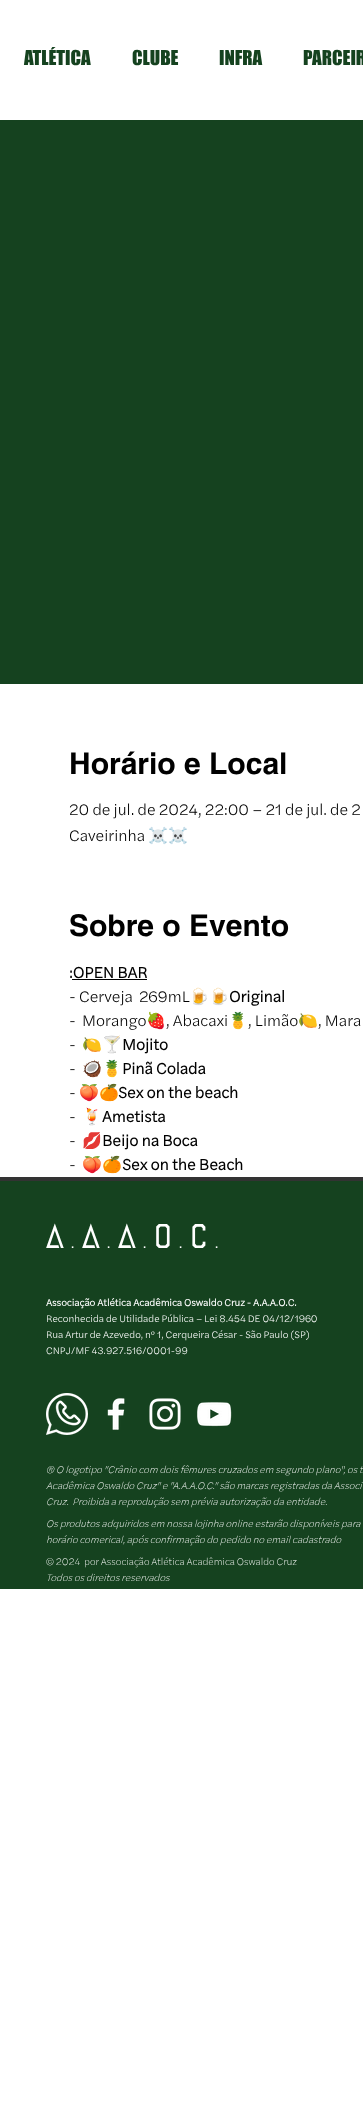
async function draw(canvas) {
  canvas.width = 363
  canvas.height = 2124
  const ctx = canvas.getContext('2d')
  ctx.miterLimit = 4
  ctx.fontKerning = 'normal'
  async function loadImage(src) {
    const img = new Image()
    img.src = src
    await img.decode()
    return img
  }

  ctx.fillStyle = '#fff'
  ctx.fillRect(0, 0, 363, 2124)
  ctx.font = '19px "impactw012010"'
  ctx.fillStyle = '#15421f'
  ctx.fillText('ATLÉTICA', 24, 65)
  ctx.fillText('CLUBE', 132, 65)
  ctx.fillText('INFRA', 219, 65)
  ctx.fillText('PARCEIR', 303, 65)
  ctx.fillRect(0, 120, 363, 564)
  ctx.font = 'bold 30px helvetica'
  ctx.fillStyle = '#000'
  ctx.fillText('Horário e Local', 69, 774)
  ctx.font = '300 16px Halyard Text'
  ctx.fillText('20 de jul. de 2024, 22:00 – 21 de jul. de 2', 69, 815)
  ctx.fillText('Caveirinha', 69, 841)
  ctx.font = '16px Noto Color Emoji'
  ctx.fillText('☠️☠️', 148, 841)
  ctx.font = 'bold 30px helvetica'
  ctx.fillText('Sobre o Evento', 69, 936)
  ctx.font = 'bold 16px Halyard Text'
  ctx.fillText(':OPEN BAR', 69, 978)
  ctx.fillRect(72, 979, 75, 1)
  ctx.font = '300 16px Halyard Text'
  ctx.fillText('- Cerveja', 69, 1002)
  ctx.fillText('269mL', 139, 1002)
  ctx.font = '16px Noto Color Emoji'
  ctx.fillText('🍺🍺', 189, 1002)
  ctx.font = 'bold 16px Halyard Text'
  ctx.fillText('Original', 229, 1002)
  ctx.font = '300 16px Halyard Text'
  ctx.fillText('-', 69, 1026)
  ctx.fillText('Morango', 82, 1026)
  ctx.font = '16px Noto Color Emoji'
  ctx.fillText('🍓', 146, 1026)
  ctx.font = '300 16px Halyard Text'
  ctx.fillText(', Abacaxi', 166, 1026)
  ctx.font = '16px Noto Color Emoji'
  ctx.fillText('🍍', 228, 1026)
  ctx.font = '300 16px Halyard Text'
  ctx.fillText(', Limão', 248, 1026)
  ctx.font = '16px Noto Color Emoji'
  ctx.fillText('🍋', 298, 1026)
  ctx.font = '300 16px Halyard Text'
  ctx.fillText(', Mara', 318, 1026)
  ctx.fillText('-', 69, 1050)
  ctx.font = '16px Noto Color Emoji'
  ctx.fillText('🍋🍸', 82, 1050)
  ctx.font = 'bold 16px Halyard Text'
  ctx.fillText('Mojito', 122, 1050)
  ctx.font = '300 16px Halyard Text'
  ctx.fillText('-', 69, 1074)
  ctx.font = '16px Noto Color Emoji'
  ctx.fillText('🥥🍍', 82, 1074)
  ctx.font = 'bold 16px Halyard Text'
  ctx.fillText('Pinã Colada', 122, 1074)
  ctx.font = '300 16px Halyard Text'
  ctx.fillText('-', 69, 1098)
  ctx.font = '16px Noto Color Emoji'
  ctx.fillText('🍑🍊', 79, 1098)
  ctx.font = 'bold 16px Halyard Text'
  ctx.fillText('Sex on the beach', 118, 1098)
  ctx.font = '300 16px Halyard Text'
  ctx.fillText('-', 69, 1122)
  ctx.font = '16px Noto Color Emoji'
  ctx.fillText('🍹', 82, 1122)
  ctx.font = 'bold 16px Halyard Text'
  ctx.fillText('Ametista', 102, 1122)
  ctx.font = '300 16px Halyard Text'
  ctx.fillText('-', 69, 1146)
  ctx.font = '16px Noto Color Emoji'
  ctx.fillText('💋', 82, 1146)
  ctx.font = 'bold 16px Halyard Text'
  ctx.fillText('Beijo na Boca', 102, 1146)
  ctx.font = '300 16px Halyard Text'
  ctx.fillText('-', 69, 1170)
  ctx.font = '16px Noto Color Emoji'
  ctx.fillText('🍑🍊', 82, 1170)
  ctx.font = 'bold 16px Halyard Text'
  ctx.fillText('Sex on the Beach', 122, 1170)
  ctx.fillStyle = '#15421f'
  ctx.fillRect(0, 1181, 363, 408)
  ctx.fillStyle = '#333'
  ctx.fillRect(0, 1177, 363, 4)
  ctx.font = '30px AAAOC'
  ctx.fillStyle = '#fff'
  ctx.fillText('A.A.A.O.C.', 46, 1248)
  ctx.font = 'bold 10px Halyard Text'
  ctx.fillText('Associação Atlética Acadêmica Oswaldo Cruz - A.A.A.O.C.', 46, 1306)
  ctx.font = '300 10px Halyard Text'
  ctx.fillText('Reconhecida de Utilidade Pública – Lei 8.454 DE 04/12/1960', 46, 1322)
  ctx.fillText('Rua Artur de Azevedo, nº 1, Cerqueira César - São Paulo (SP)', 46, 1338)
  ctx.fillText('CNPJ/MF 43.927.516/0001-99', 46, 1354)
  ctx.drawImage(await loadImage('image0.png'), 46, 1393, 42, 42)
  ctx.drawImage(await loadImage('image1.png'), 107, 1398, 18, 32)
  ctx.drawImage(await loadImage('image2.png'), 149, 1398, 32, 32)
  ctx.drawImage(await loadImage('image3.png'), 197, 1402, 35, 25)
  ctx.font = 'italic 200 10px Halyard Text'
  ctx.fillText('® O logotipo "Crânio com dois fêmures cruzados em segundo plano", os t', 46, 1473)
  ctx.fillText('Acadêmica Oswaldo Cruz" e "A.A.A.O.C." são marcas registradas da Associ', 46, 1489)
  ctx.fillText('Cruz.  Proibida a reprodução sem prévia autorização da entidade.', 46, 1505)
  ctx.fillText('Os produtos adquiridos em nossa lojinha online estarão disponíveis para', 46, 1527)
  ctx.fillText('horário comerical, após confirmação do pedido no email cadastrado', 46, 1543)
  ctx.font = '200 10px Halyard Text'
  ctx.fillText('© 2024  por Associação Atlética Acadêmica Oswaldo Cruz', 46, 1565)
  ctx.font = 'italic 200 10px Halyard Text'
  ctx.fillText('Todos os direitos reservados', 46, 1581)
}

draw(document.querySelector('canvas'))
